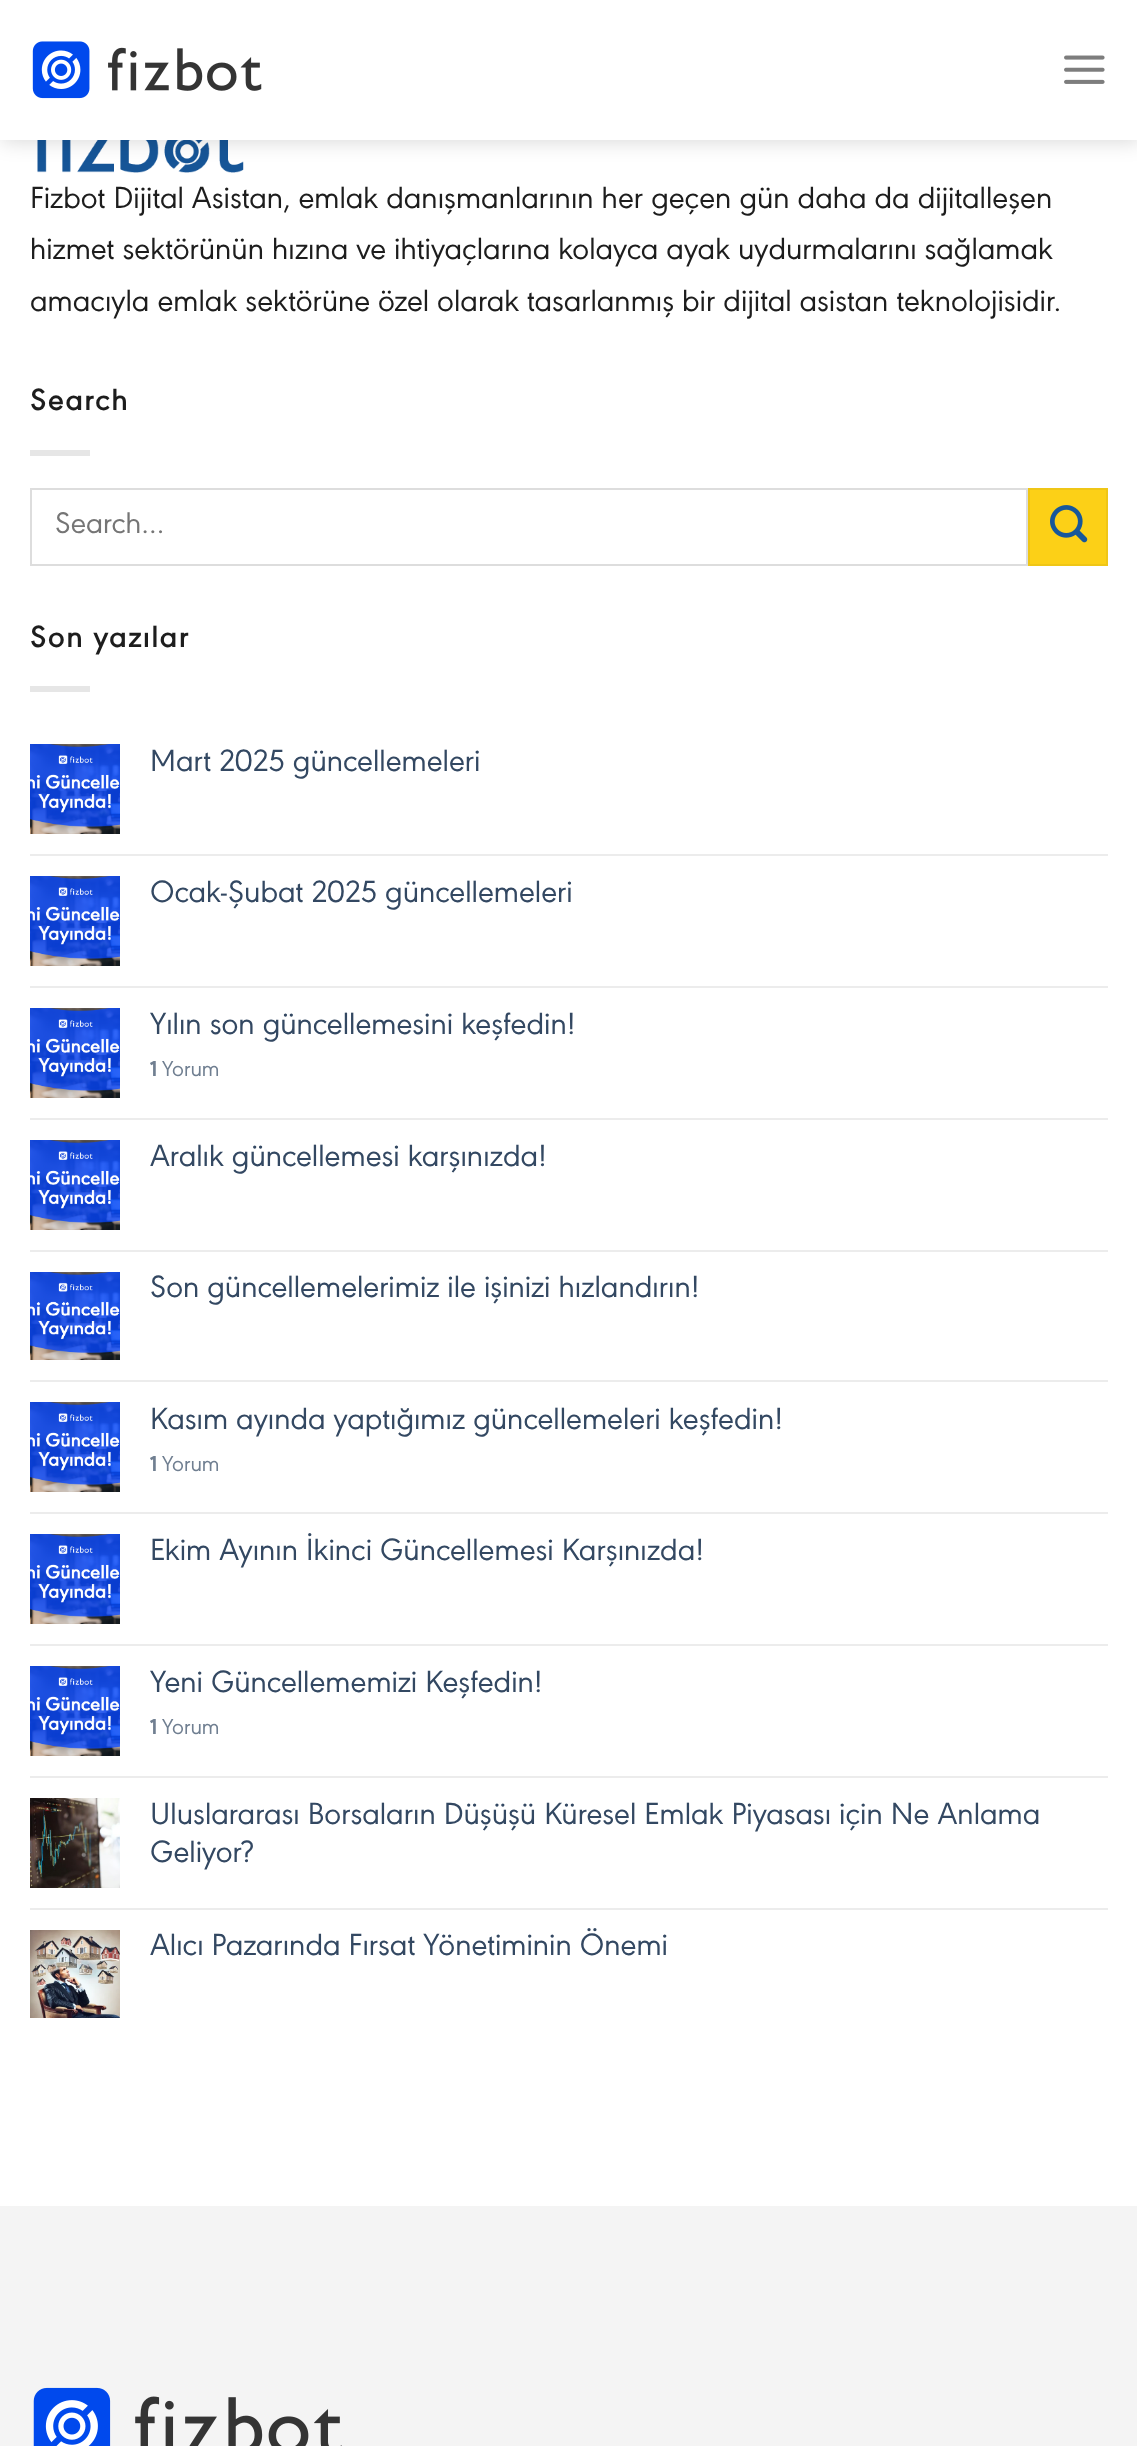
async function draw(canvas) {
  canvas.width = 1137
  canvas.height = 2446
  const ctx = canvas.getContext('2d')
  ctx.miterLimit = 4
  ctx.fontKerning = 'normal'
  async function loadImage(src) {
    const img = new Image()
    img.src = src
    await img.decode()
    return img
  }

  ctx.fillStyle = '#fff'
  ctx.fillRect(0, 0, 1137, 2446)
  ctx.drawImage(await loadImage('image2.png'), 37, 140, 207, 33)
  ctx.fillStyle = '#00000026'
  ctx.filter = 'blur(10px)'
  ctx.beginPath()
  ctx.rect(2, 2, 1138, 140)
  ctx.fill()
  ctx.filter = 'none'
  ctx.fillStyle = '#fff'
  ctx.fillRect(0, 0, 1137, 140)
  ctx.drawImage(await loadImage('image0.png'), 32, 41, 230, 58)
  ctx.drawImage(await loadImage('image1.png'), 1064, 55, 41, 29)
  ctx.font = '32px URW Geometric'
  ctx.fillStyle = '#1d1d1d'
  ctx.fillText('Fizbot Dijital Asistan, emlak danışmanlarının her geçen gün daha da dijitalleşen', 30, 208)
  ctx.fillText('hizmet sektörünün hızına ve ihtiyaçlarına kolayca ayak uydurmalarını sağlamak', 30, 259)
  ctx.fillText('amacıyla emlak sektörüne özel olarak tasarlanmış bir dijital asistan teknolojisidir.', 30, 311)
  ctx.letterSpacing = '1.6px'
  ctx.font = '600 32px URW Geometric'
  ctx.fillText('Search', 30, 410)
  ctx.fillStyle = '#e6e6e6'
  ctx.fillRect(30, 450, 60, 6)
  ctx.strokeStyle = '#ddd'
  ctx.lineWidth = 2
  ctx.strokeRect(31, 489, 996, 76)
  ctx.letterSpacing = '0px'
  ctx.font = '31px URW Geometric'
  ctx.fillStyle = '#757575'
  ctx.fillText('Search…', 55, 533)
  ctx.fillStyle = '#fcd017'
  ctx.beginPath()
  ctx.rect(1029, 489, 78, 76)
  ctx.fill()
  ctx.strokeStyle = '#efc616'
  ctx.stroke()
  ctx.drawImage(await loadImage('image3.png'), 1050, 505, 38, 38)
  ctx.letterSpacing = '1.6px'
  ctx.font = '600 32px URW Geometric'
  ctx.fillStyle = '#1d1d1d'
  ctx.fillText('Son yazılar', 30, 647)
  ctx.fillStyle = '#e6e6e6'
  ctx.fillRect(30, 686, 60, 6)
  ctx.drawImage(await loadImage('image4.png'), 30, 744, 90, 90)
  ctx.letterSpacing = '0px'
  ctx.font = '32px URW Geometric'
  ctx.fillStyle = '#334862'
  ctx.fillText('Mart 2025 güncellemeleri', 150, 771)
  ctx.fillStyle = '#ececec'
  ctx.fillRect(30, 854, 1078, 2)
  ctx.drawImage(await loadImage('image4.png'), 30, 876, 90, 90)
  ctx.fillStyle = '#334862'
  ctx.fillText('Ocak-Şubat 2025 güncellemeleri', 150, 902)
  ctx.fillStyle = '#ececec'
  ctx.fillRect(30, 986, 1078, 2)
  ctx.drawImage(await loadImage('image4.png'), 30, 1008, 90, 90)
  ctx.fillStyle = '#334862'
  ctx.fillText('Yılın son güncellemesini keşfedin!', 150, 1034)
  ctx.font = 'bold 22.5px URW Geometric'
  ctx.fillStyle = '#707f91'
  ctx.fillText('1', 150, 1076)
  ctx.font = '22.5px URW Geometric'
  ctx.fillText('Yorum', 162, 1076)
  ctx.fillStyle = '#ececec'
  ctx.fillRect(30, 1118, 1078, 2)
  ctx.drawImage(await loadImage('image4.png'), 30, 1140, 90, 90)
  ctx.font = '32px URW Geometric'
  ctx.fillStyle = '#334862'
  ctx.fillText('Aralık güncellemesi karşınızda!', 150, 1166)
  ctx.fillStyle = '#ececec'
  ctx.fillRect(30, 1250, 1078, 2)
  ctx.drawImage(await loadImage('image5.png'), 30, 1272, 90, 88)
  ctx.fillStyle = '#334862'
  ctx.fillText('Son güncellemelerimiz ile işinizi hızlandırın!', 150, 1297)
  ctx.fillStyle = '#ececec'
  ctx.fillRect(30, 1380, 1078, 2)
  ctx.drawImage(await loadImage('image4.png'), 30, 1402, 90, 90)
  ctx.fillStyle = '#334862'
  ctx.fillText('Kasım ayında yaptığımız güncellemeleri keşfedin!', 150, 1429)
  ctx.font = 'bold 22.5px URW Geometric'
  ctx.fillStyle = '#707f91'
  ctx.fillText('1', 150, 1471)
  ctx.font = '22.5px URW Geometric'
  ctx.fillText('Yorum', 162, 1471)
  ctx.fillStyle = '#ececec'
  ctx.fillRect(30, 1512, 1078, 2)
  ctx.drawImage(await loadImage('image4.png'), 30, 1534, 90, 90)
  ctx.font = '32px URW Geometric'
  ctx.fillStyle = '#334862'
  ctx.fillText('Ekim Ayının İkinci Güncellemesi Karşınızda!', 150, 1560)
  ctx.fillStyle = '#ececec'
  ctx.fillRect(30, 1644, 1078, 2)
  ctx.drawImage(await loadImage('image4.png'), 30, 1666, 90, 90)
  ctx.fillStyle = '#334862'
  ctx.fillText('Yeni Güncellememizi Keşfedin!', 150, 1692)
  ctx.font = 'bold 22.5px URW Geometric'
  ctx.fillStyle = '#707f91'
  ctx.fillText('1', 150, 1734)
  ctx.font = '22.5px URW Geometric'
  ctx.fillText('Yorum', 162, 1734)
  ctx.fillStyle = '#ececec'
  ctx.fillRect(30, 1776, 1078, 2)
  ctx.drawImage(await loadImage('image6.png'), 30, 1798, 90, 90)
  ctx.font = '32px URW Geometric'
  ctx.fillStyle = '#334862'
  ctx.fillText('Uluslararası Borsaların Düşüşü Küresel Emlak Piyasası için Ne Anlama', 150, 1824)
  ctx.fillText('Geliyor?', 150, 1862)
  ctx.fillStyle = '#ececec'
  ctx.fillRect(30, 1908, 1078, 2)
  ctx.drawImage(await loadImage('image7.png'), 30, 1930, 90, 88)
  ctx.fillStyle = '#334862'
  ctx.fillText('Alıcı Pazarında Fırsat Yönetiminin Önemi', 150, 1955)
  ctx.fillStyle = '#f4f4f4'
  ctx.fillRect(0, 2206, 1137, 240)
  ctx.drawImage(await loadImage('image8.png'), 33, 2387, 309, 59)
}

draw(document.querySelector('canvas'))
